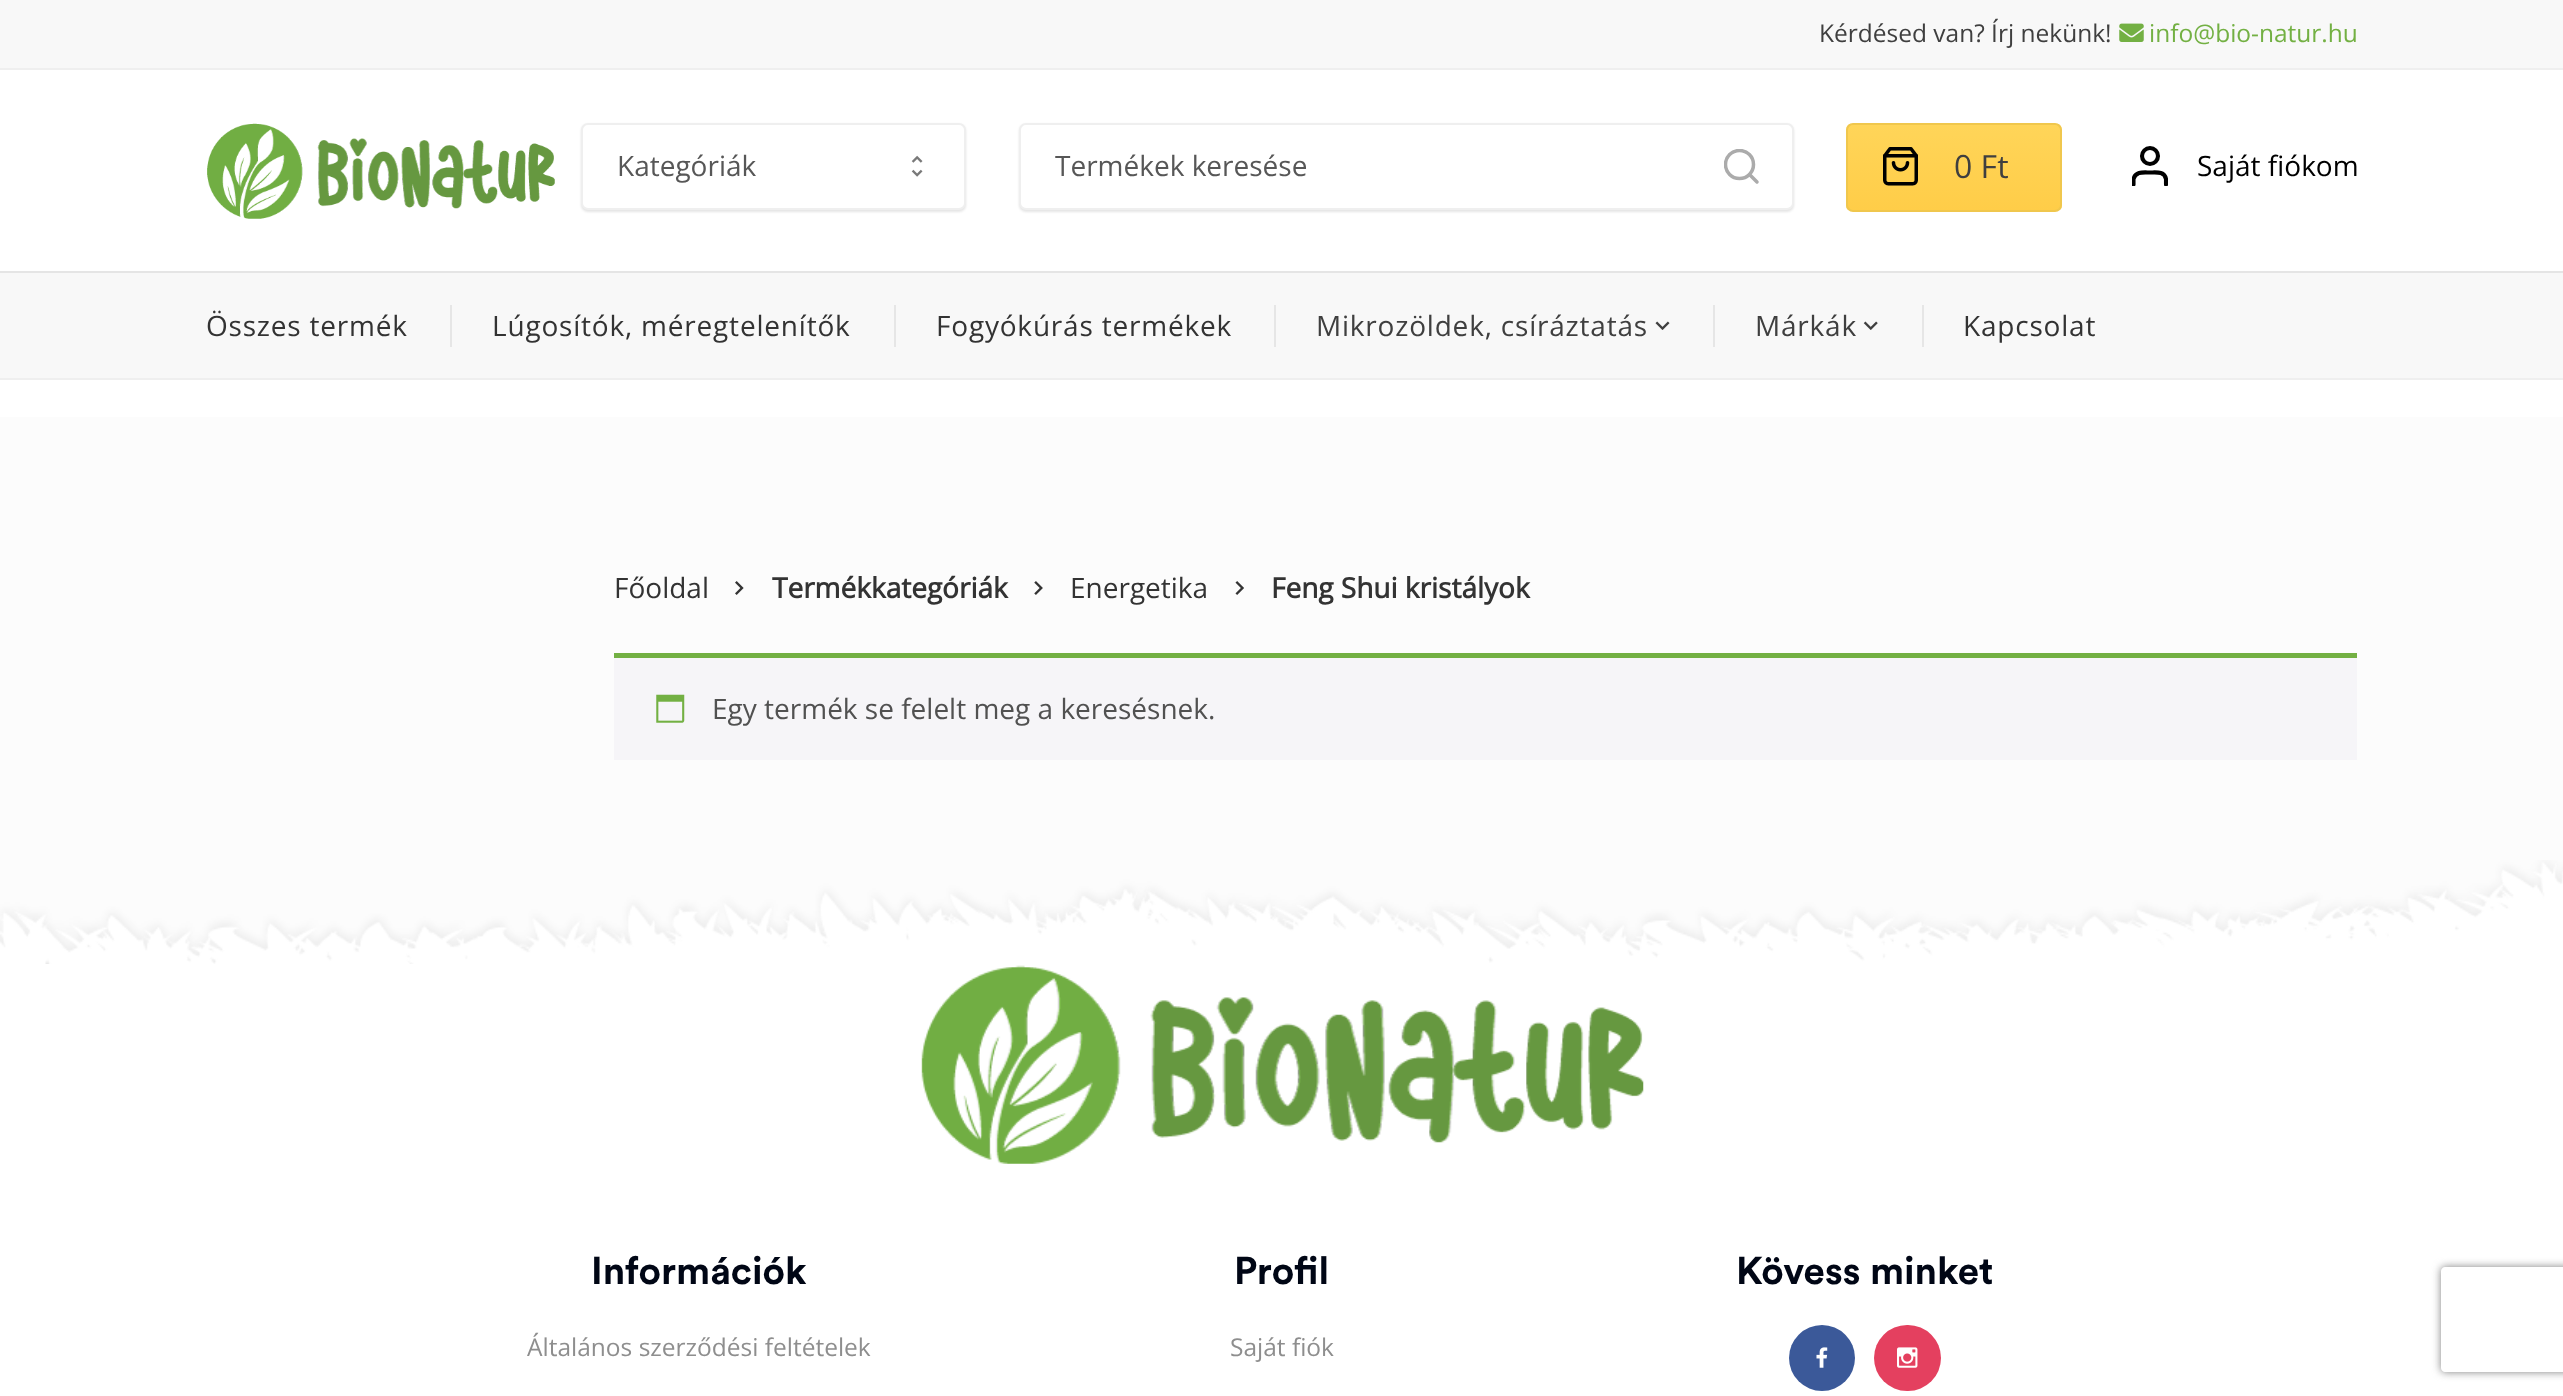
async function draw(canvas) {
  canvas.width = 2563
  canvas.height = 1396
  const ctx = canvas.getContext('2d')
  ctx.miterLimit = 4
  ctx.fontKerning = 'normal'
  async function loadImage(src) {
    const img = new Image()
    img.src = src
    await img.decode()
    return img
  }
  let gradient

  ctx.fillStyle = '#fff'
  ctx.fillRect(0, 0, 2563, 1396)
  ctx.fillStyle = '#f8f8f8'
  ctx.fillRect(0, 0, 2563, 68)
  ctx.fillStyle = '#efefef'
  ctx.fillRect(0, 68, 2563, 2)
  ctx.font = '24.5px Open Sans'
  ctx.fillStyle = '#3f3f3f'
  ctx.fillText('Kérdésed van? Írj nekünk!', 1819, 42)
  ctx.drawImage(await loadImage('image0.png'), 2119, 23, 25, 19)
  ctx.fillStyle = '#73b043'
  ctx.fillText('info@bio-natur.hu', 2149, 42)
  ctx.drawImage(await loadImage('image1.png'), 207, 123, 348, 96)
  ctx.fillStyle = '#0000001a'
  ctx.filter = 'blur(1px)'
  ctx.beginPath()
  ctx.roundRect(581, 124, 385, 88, 7)
  ctx.fill()
  ctx.filter = 'none'
  ctx.fillStyle = '#fff'
  ctx.beginPath()
  ctx.roundRect(582, 124, 383, 85, 6)
  ctx.fill()
  ctx.strokeStyle = '#efefef'
  ctx.lineWidth = 2
  ctx.stroke()
  ctx.font = '28px Open Sans'
  ctx.fillStyle = '#575757'
  ctx.fillText('Kategóriák', 617, 176)
  ctx.drawImage(await loadImage('image2.png'), 911, 155, 12, 22)
  ctx.fillStyle = '#0000001a'
  ctx.filter = 'blur(1px)'
  ctx.beginPath()
  ctx.roundRect(1019, 124, 775, 88, 7)
  ctx.fill()
  ctx.filter = 'none'
  ctx.fillStyle = '#fff'
  ctx.beginPath()
  ctx.roundRect(1020, 124, 773, 85, 6)
  ctx.fill()
  ctx.stroke()
  ctx.fillStyle = '#575757'
  ctx.fillText('Termékek keresése', 1055, 176)
  ctx.save()
  ctx.beginPath()
  ctx.rect(1724, 149, 35, 35)
  ctx.clip()
  ctx.beginPath()
  ctx.arc(1739.5, 164.5, 14, 0, 2 * Math.PI)
  ctx.strokeStyle = '#ababab'
  ctx.lineWidth = 3.5
  ctx.stroke()
  ctx.restore()
  ctx.beginPath()
  ctx.moveTo(1757, 182)
  ctx.lineTo(1749.5, 174.5)
  ctx.strokeStyle = '#ababab'
  ctx.lineWidth = 3.5
  ctx.lineCap = 'round'
  ctx.lineJoin = 'round'
  ctx.stroke()
  ctx.save()
  ctx.beginPath()
  ctx.roundRect(1846, 123, 216, 89, 7)
  ctx.clip()
  gradient = ctx.createLinearGradient(1954, 210, 1954, 124)
  gradient.addColorStop(0, '#ffcd48')
  gradient.addColorStop(1, '#ffd559')
  ctx.fillStyle = gradient
  ctx.fillRect(1846, 124, 216, 86)
  ctx.restore()
  ctx.beginPath()
  ctx.roundRect(1847, 124, 214, 87, 6)
  ctx.strokeStyle = '#f0c74d'
  ctx.lineWidth = 2
  ctx.lineJoin = 'miter'
  ctx.stroke()
  ctx.drawImage(await loadImage('image3.png'), 1883, 147, 35, 39)
  ctx.font = '32px Open Sans'
  ctx.fillStyle = '#3f3f3f'
  ctx.fillText('0 Ft', 1954, 178)
  ctx.save()
  ctx.beginPath()
  ctx.rect(2132, 145, 36, 41)
  ctx.clip()
  ctx.beginPath()
  ctx.moveTo(2166, 184.5)
  ctx.lineTo(2166, 179)
  ctx.bezierCurveTo(2164.5, 171, 2156, 172.5, 2150, 172.5)
  ctx.bezierCurveTo(2144, 172.5, 2135.5, 171, 2133.5, 179)
  ctx.lineTo(2133.5, 184.5)
  ctx.strokeStyle = '#000'
  ctx.lineWidth = 4.1
  ctx.lineJoin = 'round'
  ctx.stroke()
  ctx.restore()
  ctx.beginPath()
  ctx.arc(2150, 156, 8, 0, 2 * Math.PI)
  ctx.strokeStyle = '#000'
  ctx.lineWidth = 4.1
  ctx.stroke()
  ctx.font = '28px Open Sans'
  ctx.fillStyle = '#000'
  ctx.fillText('Saját fiókom', 2197, 176)
  ctx.fillStyle = '#f8f8f8'
  ctx.fillRect(0, 273, 2563, 105)
  ctx.fillStyle = '#e5e5e5'
  ctx.fillRect(0, 271, 2563, 2)
  ctx.fillStyle = '#efefef'
  ctx.fillRect(0, 378, 2563, 2)
  ctx.letterSpacing = '0.8px'
  ctx.fillStyle = '#333'
  ctx.fillText('Összes termék', 206, 336)
  ctx.fillStyle = '#e6e6e6'
  ctx.fillRect(450, 305, 2, 42)
  ctx.fillStyle = '#333'
  ctx.fillText('Lúgosítók, méregtelenítők', 492, 336)
  ctx.fillStyle = '#e6e6e6'
  ctx.fillRect(894, 305, 2, 42)
  ctx.fillStyle = '#333'
  ctx.fillText('Fogyókúrás termékek', 936, 336)
  ctx.fillStyle = '#e6e6e6'
  ctx.fillRect(1274, 305, 2, 42)
  ctx.fillStyle = '#3f3f3f'
  ctx.fillText('Mikrozöldek, csíráztatás', 1316, 336)
  ctx.drawImage(await loadImage('image4.png'), 1655, 321, 15, 9)
  ctx.fillStyle = '#e6e6e6'
  ctx.fillRect(1713, 305, 2, 42)
  ctx.fillStyle = '#3f3f3f'
  ctx.fillText('Márkák', 1755, 336)
  ctx.drawImage(await loadImage('image5.png'), 1863, 321, 15, 9)
  ctx.fillStyle = '#e6e6e6'
  ctx.fillRect(1922, 305, 2, 42)
  ctx.fillStyle = '#333'
  ctx.fillText('Kapcsolat', 1963, 336)
  ctx.fillStyle = '#fcfcfc'
  ctx.fillRect(0, 417, 2563, 547)
  ctx.letterSpacing = '0px'
  ctx.fillStyle = '#333'
  ctx.fillText('Főoldal', 614, 598)
  ctx.drawImage(await loadImage('image6.png'), 735, 581, 9, 14)
  ctx.font = 'bold 28px Open Sans'
  ctx.fillText('Termékkategóriák', 772, 598)
  ctx.drawImage(await loadImage('image7.png'), 1034, 581, 9, 14)
  ctx.font = '28px Open Sans'
  ctx.fillText('Energetika', 1070, 598)
  ctx.drawImage(await loadImage('image8.png'), 1235, 581, 9, 14)
  ctx.font = 'bold 28px Open Sans'
  ctx.fillText('Feng Shui kristályok', 1271, 598)
  ctx.fillStyle = '#f6f5f8'
  ctx.fillRect(614, 658, 1743, 102)
  ctx.fillStyle = '#73b043'
  ctx.fillRect(614, 653, 1743, 5)
  ctx.drawImage(await loadImage('image9.png'), 656, 694, 29, 29)
  ctx.font = '28px Open Sans'
  ctx.fillStyle = '#515151'
  ctx.fillText('Egy termék se felelt meg a keresésnek.', 712, 719)
  ctx.save()
  ctx.beginPath()
  ctx.moveTo(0, 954)
  ctx.lineTo(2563, 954)
  ctx.lineTo(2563, 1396)
  ctx.lineTo(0, 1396)
  ctx.closePath()
  ctx.moveTo(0, 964)
  ctx.lineTo(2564, 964)
  ctx.lineTo(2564, 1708)
  ctx.lineTo(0, 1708)
  ctx.closePath()
  ctx.clip('evenodd')
  ctx.fillStyle = '#00000099'
  ctx.filter = 'blur(5px)'
  ctx.beginPath()
  ctx.rect(0, 970, 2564, 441)
  ctx.fill()
  ctx.filter = 'none'
  ctx.restore()
  ctx.drawImage(await loadImage('image10.png'), 0, 860, 2563, 104)
  ctx.drawImage(await loadImage('image11.png'), 921, 965, 723, 199)
  ctx.font = 'bold 38.5px Circular'
  ctx.fillStyle = '#000615'
  ctx.fillText('Információk', 591, 1284)
  ctx.font = '24.5px Open Sans'
  ctx.fillStyle = '#8e8e8e'
  ctx.fillText('Általános szerződési feltételek', 527, 1356)
  ctx.font = 'bold 38.5px Circular'
  ctx.fillStyle = '#000615'
  ctx.fillText('Profil', 1234, 1284)
  ctx.font = '24.5px Open Sans'
  ctx.fillStyle = '#8e8e8e'
  ctx.fillText('Saját fiók', 1230, 1356)
  ctx.font = 'bold 38.5px Circular'
  ctx.fillStyle = '#000615'
  ctx.fillText('Kövess minket', 1736, 1284)
  ctx.fillStyle = '#3b5999'
  ctx.beginPath()
  ctx.arc(1822, 1358, 33, 0, 2 * Math.PI)
  ctx.fill()
  ctx.drawImage(await loadImage('image12.png'), 1816, 1347, 12, 21)
  ctx.fillStyle = '#e4405f'
  ctx.beginPath()
  ctx.roundRect(1874, 1325, 67, 66, 33)
  ctx.fill()
  ctx.drawImage(await loadImage('image13.png'), 1897, 1347, 21, 21)
  ctx.save()
  ctx.beginPath()
  ctx.moveTo(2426, 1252)
  ctx.lineTo(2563, 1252)
  ctx.lineTo(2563, 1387)
  ctx.lineTo(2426, 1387)
  ctx.closePath()
  ctx.moveTo(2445, 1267)
  ctx.lineTo(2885, 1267)
  ctx.bezierCurveTo(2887, 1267, 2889, 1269, 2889, 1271)
  ctx.lineTo(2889, 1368)
  ctx.bezierCurveTo(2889, 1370, 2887, 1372, 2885, 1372)
  ctx.lineTo(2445, 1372)
  ctx.bezierCurveTo(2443, 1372, 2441, 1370, 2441, 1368)
  ctx.lineTo(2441, 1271)
  ctx.bezierCurveTo(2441, 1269, 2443, 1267, 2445, 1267)
  ctx.closePath()
  ctx.clip('evenodd')
  ctx.fillStyle = '#808080'
  ctx.filter = 'blur(4.5px)'
  ctx.beginPath()
  ctx.roundRect(2441, 1267, 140, 105, 4)
  ctx.fill()
  ctx.filter = 'none'
  ctx.restore()
}

draw(document.querySelector('canvas'))
